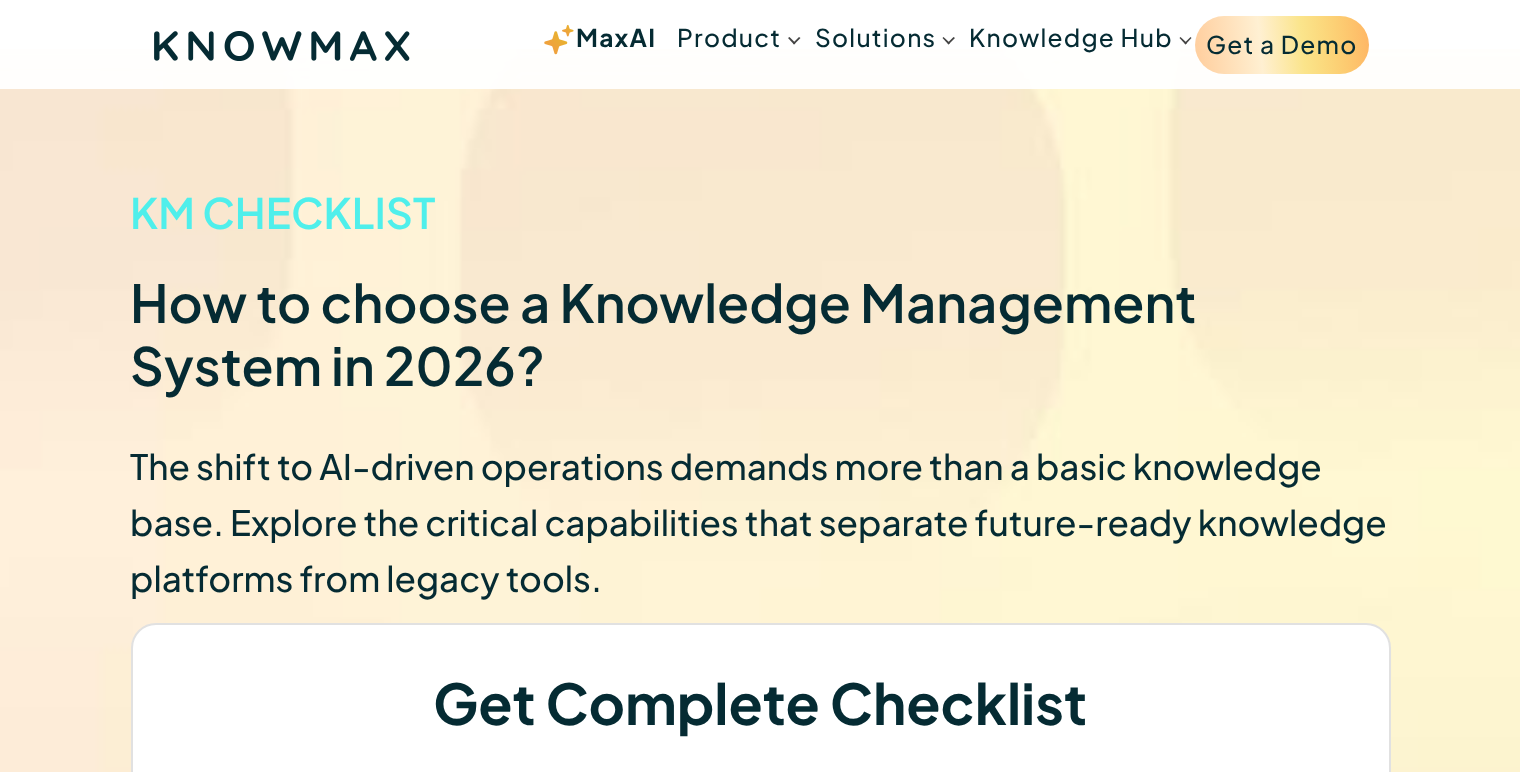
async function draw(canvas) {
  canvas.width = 1520
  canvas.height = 772
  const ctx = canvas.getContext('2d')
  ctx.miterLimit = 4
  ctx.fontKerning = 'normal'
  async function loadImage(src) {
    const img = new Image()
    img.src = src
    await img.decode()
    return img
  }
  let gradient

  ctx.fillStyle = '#fff'
  ctx.fillRect(0, 0, 1520, 772)
  ctx.drawImage(await loadImage('image2.png'), 0, 49, 1520, 723)
  ctx.fillStyle = '#fffffff0'
  ctx.fillRect(0, 49, 1520, 40)
  ctx.drawImage(await loadImage('image0.png'), 154, 31, 256, 30)
  ctx.drawImage(await loadImage('image1.png'), 544, 24, 30, 31)
  ctx.letterSpacing = '1.25px'
  ctx.font = 'bold 24.5px Plus Jakarta Sans'
  ctx.fillStyle = '#052b33'
  ctx.fillText('MaxAI', 576, 47)
  ctx.font = '500 24.5px Plus Jakarta Sans'
  ctx.fillText('Product', 677, 47)
  ctx.fillStyle = '#444'
  ctx.beginPath()
  ctx.moveTo(799, 37)
  ctx.lineTo(800.5, 38)
  ctx.lineTo(794, 44.5)
  ctx.lineTo(793, 43)
  ctx.closePath()
  ctx.fill()
  ctx.beginPath()
  ctx.moveTo(789.5, 37)
  ctx.lineTo(795.5, 43)
  ctx.lineTo(794, 44.5)
  ctx.lineTo(788, 38)
  ctx.closePath()
  ctx.fill()
  ctx.fillStyle = '#052b33'
  ctx.fillText('Solutions', 815, 47)
  ctx.fillStyle = '#444'
  ctx.beginPath()
  ctx.moveTo(953.5, 37)
  ctx.lineTo(955, 38)
  ctx.lineTo(948.5, 44.5)
  ctx.lineTo(947.5, 43)
  ctx.closePath()
  ctx.fill()
  ctx.beginPath()
  ctx.moveTo(943.5, 37)
  ctx.lineTo(950, 43)
  ctx.lineTo(948.5, 44.5)
  ctx.lineTo(942.5, 38)
  ctx.closePath()
  ctx.fill()
  ctx.fillStyle = '#052b33'
  ctx.fillText('Knowledge Hub', 969, 47)
  ctx.fillStyle = '#444'
  ctx.beginPath()
  ctx.moveTo(1190.5, 37)
  ctx.lineTo(1191.5, 38)
  ctx.lineTo(1185.5, 44.5)
  ctx.lineTo(1184.5, 43)
  ctx.closePath()
  ctx.fill()
  ctx.beginPath()
  ctx.moveTo(1180.5, 37)
  ctx.lineTo(1187, 43)
  ctx.lineTo(1185.5, 44.5)
  ctx.lineTo(1179.5, 38)
  ctx.closePath()
  ctx.fill()
  gradient = ctx.createLinearGradient(1193, 53, 1375, 36)
  gradient.addColorStop(0.03, '#ffb16399')
  gradient.addColorStop(0.37, '#ffe6b599')
  gradient.addColorStop(0.6, '#f8d33f99')
  gradient.addColorStop(1, '#ffb163')
  ctx.fillStyle = gradient
  ctx.beginPath()
  ctx.roundRect(1195, 16, 174, 58, 29)
  ctx.fill()
  ctx.fillStyle = '#052b33'
  ctx.fillText('Get a Demo', 1206, 54)
  ctx.letterSpacing = '0px'
  ctx.font = '600 42px Plus Jakarta Sans'
  ctx.fillStyle = '#4fefeb'
  ctx.fillText('KM CHECKLIST', 130, 229)
  ctx.font = '600 52.5px Plus Jakarta Sans'
  ctx.fillStyle = '#052b33'
  ctx.fillText('How to choose a Knowledge Management', 130, 323)
  ctx.fillText('System in 2026?', 130, 386)
  ctx.font = '500 35px Plus Jakarta Sans'
  ctx.fillText('The shift to AI-driven operations demands more than a basic knowledge', 130, 480)
  ctx.fillText('base. Explore the critical capabilities that separate future-ready knowledge', 130, 536)
  ctx.fillText('platforms from legacy tools.', 130, 592)
  ctx.fillStyle = '#fff'
  ctx.beginPath()
  ctx.roundRect(132, 624, 1258, 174, 24)
  ctx.fill()
  ctx.strokeStyle = '#e1e1e1'
  ctx.lineWidth = 2
  ctx.stroke()
  ctx.font = 'bold 56px Plus Jakarta Sans'
  ctx.fillStyle = '#052b33'
  ctx.fillText('Get Complete Checklist', 433, 725)
}

draw(document.querySelector('canvas'))
